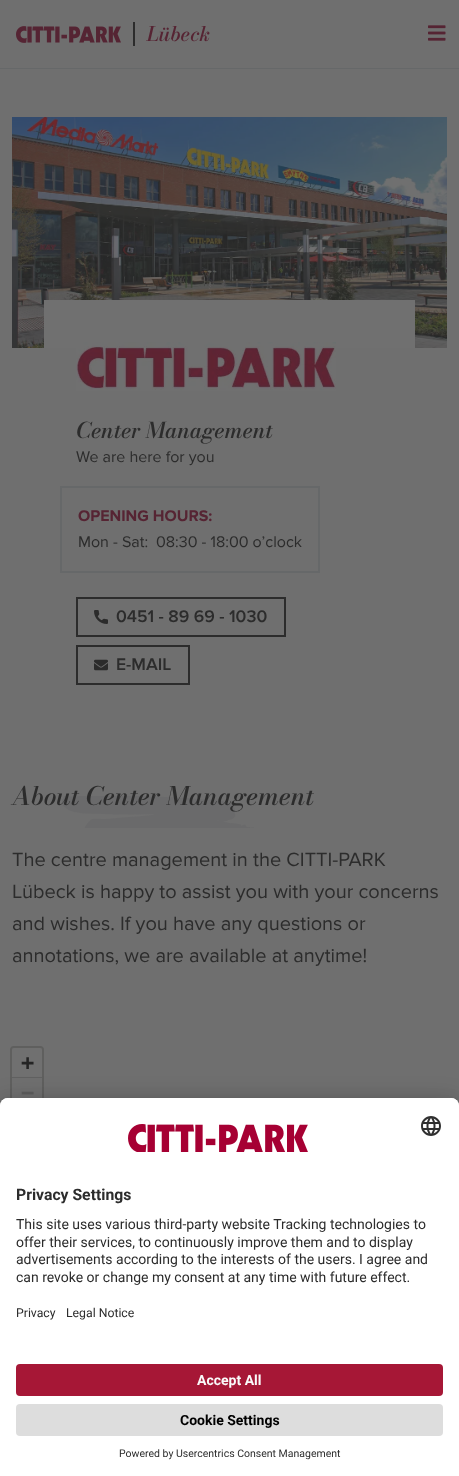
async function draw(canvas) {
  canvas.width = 459
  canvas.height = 1476
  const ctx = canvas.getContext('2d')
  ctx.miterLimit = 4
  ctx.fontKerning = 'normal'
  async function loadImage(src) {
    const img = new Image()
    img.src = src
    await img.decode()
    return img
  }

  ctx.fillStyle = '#6f6f6f'
  ctx.fillRect(0, 0, 459, 1476)
  ctx.fillStyle = '#666869'
  ctx.fillRect(0, 68, 459, 1)
  ctx.drawImage(await loadImage('image0.png'), 16, 26, 105, 17)
  ctx.fillStyle = '#2c2c2c'
  ctx.fillRect(133, 22, 2, 24)
  ctx.font = 'italic 500 20px "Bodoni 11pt"'
  ctx.fillStyle = '#562433'
  ctx.fillText('Lübeck', 147, 41)
  ctx.drawImage(await loadImage('image1.png'), 428, 25, 18, 16)
  ctx.drawImage(await loadImage('image2.png'), 12, 117, 435, 231)
  ctx.fillStyle = '#707070'
  ctx.fillRect(44, 300, 371, 48)
  ctx.drawImage(await loadImage('image3.png'), 76, 342, 260, 49)
  ctx.font = 'italic 500 21.75px "Bodoni 11pt"'
  ctx.fillStyle = '#2c2c2c'
  ctx.fillText('Center Management', 76, 438)
  ctx.font = '16px Proxima Nova'
  ctx.fillText('We are here for you', 76, 462)
  ctx.strokeStyle = '#666869'
  ctx.lineWidth = 2
  ctx.strokeRect(61, 487, 258, 85)
  ctx.font = 'bold 16px Proxima Nova'
  ctx.fillStyle = '#562433'
  ctx.fillText('OPENING HOURS:', 78, 521)
  ctx.font = '16px Proxima Nova'
  ctx.fillStyle = '#2c2c2c'
  ctx.fillText('Mon - Sat:', 78, 547)
  ctx.fillText('08:30 - 18:00 o’clock', 156, 547)
  ctx.strokeStyle = '#2c2c2c'
  ctx.strokeRect(77, 598, 208, 38)
  ctx.drawImage(await loadImage('image4.png'), 94, 610, 14, 14)
  ctx.font = '600 17.5px Proxima Nova'
  ctx.fillText('0451 - 89 69 - 1030', 116, 622)
  ctx.strokeRect(77, 646, 112, 38)
  ctx.drawImage(await loadImage('image5.png'), 94, 659, 14, 12)
  ctx.fillText('E-MAIL', 116, 670)
  ctx.drawImage(await loadImage('image6.png'), 62, 796, 192, 32)
  ctx.font = 'italic 500 25.25px "Bodoni 11pt"'
  ctx.fillText('About Center Management', 12, 805)
  ctx.font = '20px Proxima Nova'
  ctx.fillText('The centre management in the CITTI-PARK', 12, 866)
  ctx.fillText('Lübeck is happy to assist you with your concerns', 12, 898)
  ctx.fillText('and wishes. If you have any questions or', 12, 930)
  ctx.fillText('annotations, we are available at anytime!', 12, 962)
  ctx.beginPath()
  ctx.roundRect(11, 1047, 32, 62, 3)
  ctx.strokeStyle = '#5f5f5e'
  ctx.stroke()
  ctx.fillStyle = '#707070'
  ctx.beginPath()
  ctx.roundRect(12, 1048, 30, 30, [2, 2, 0, 0])
  ctx.fill()
  ctx.fillStyle = '#616161'
  ctx.fillRect(12, 1077, 30, 1)
  ctx.font = 'bold 22px DejaVu Sans Mono'
  ctx.fillStyle = '#242424'
  ctx.fillText('+', 21, 1070)
  ctx.fillStyle = '#5c5c5c'
  ctx.fillText('−', 21, 1100)
  ctx.fillStyle = '#0000004d'
  ctx.filter = 'blur(14px)'
  ctx.beginPath()
  ctx.roundRect(0, 1118, 459, 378, 8)
  ctx.fill()
  ctx.filter = 'none'
  ctx.fillStyle = '#00000038'
  ctx.filter = 'blur(13px)'
  ctx.beginPath()
  ctx.roundRect(0, 1103, 459, 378, 8)
  ctx.fill()
  ctx.filter = 'none'
  ctx.fillStyle = '#fff'
  ctx.beginPath()
  ctx.roundRect(0, 1098, 459, 378, [8, 8, 0, 0])
  ctx.fill()
  ctx.beginPath()
  ctx.roundRect(0, 1098, 459, 254, [8, 8, 0, 0])
  ctx.fill()
  ctx.drawImage(await loadImage('image7.png'), 128, 1124, 180, 28)
  ctx.drawImage(await loadImage('image8.png'), 421, 1116, 20, 20)
  ctx.font = 'bold 15.75px Roboto'
  ctx.fillStyle = '#2c2c2c'
  ctx.fillText('Privacy Settings', 16, 1200)
  ctx.font = '14px Roboto'
  ctx.fillText('This site uses various third-party website Tracking technologies to', 16, 1229)
  ctx.fillText('offer their services, to continuously improve them and to display', 16, 1247)
  ctx.fillText('advertisements according to the interests of the users. I agree and', 16, 1264)
  ctx.fillText('can revoke or change my consent at any time with future effect.', 16, 1282)
  ctx.font = '12.25px Roboto'
  ctx.fillText('Privacy', 16, 1317)
  ctx.fillText('Legal Notice', 66, 1317)
  ctx.fillStyle = '#a61736'
  ctx.beginPath()
  ctx.roundRect(16, 1364, 427, 32, 4)
  ctx.fill()
  ctx.font = 'bold 14px Roboto'
  ctx.fillStyle = '#fafafa'
  ctx.fillText('Accept All', 197, 1385)
  ctx.fillStyle = '#ddd'
  ctx.beginPath()
  ctx.roundRect(16, 1404, 427, 32, 4)
  ctx.fill()
  ctx.fillStyle = '#000'
  ctx.fillText('Cookie Settings', 180, 1425)
  ctx.font = '10.5px Roboto'
  ctx.fillStyle = '#2c2c2c'
  ctx.fillText('Powered by Usercentrics Consent Management', 119, 1457)
}

draw(document.querySelector('canvas'))
